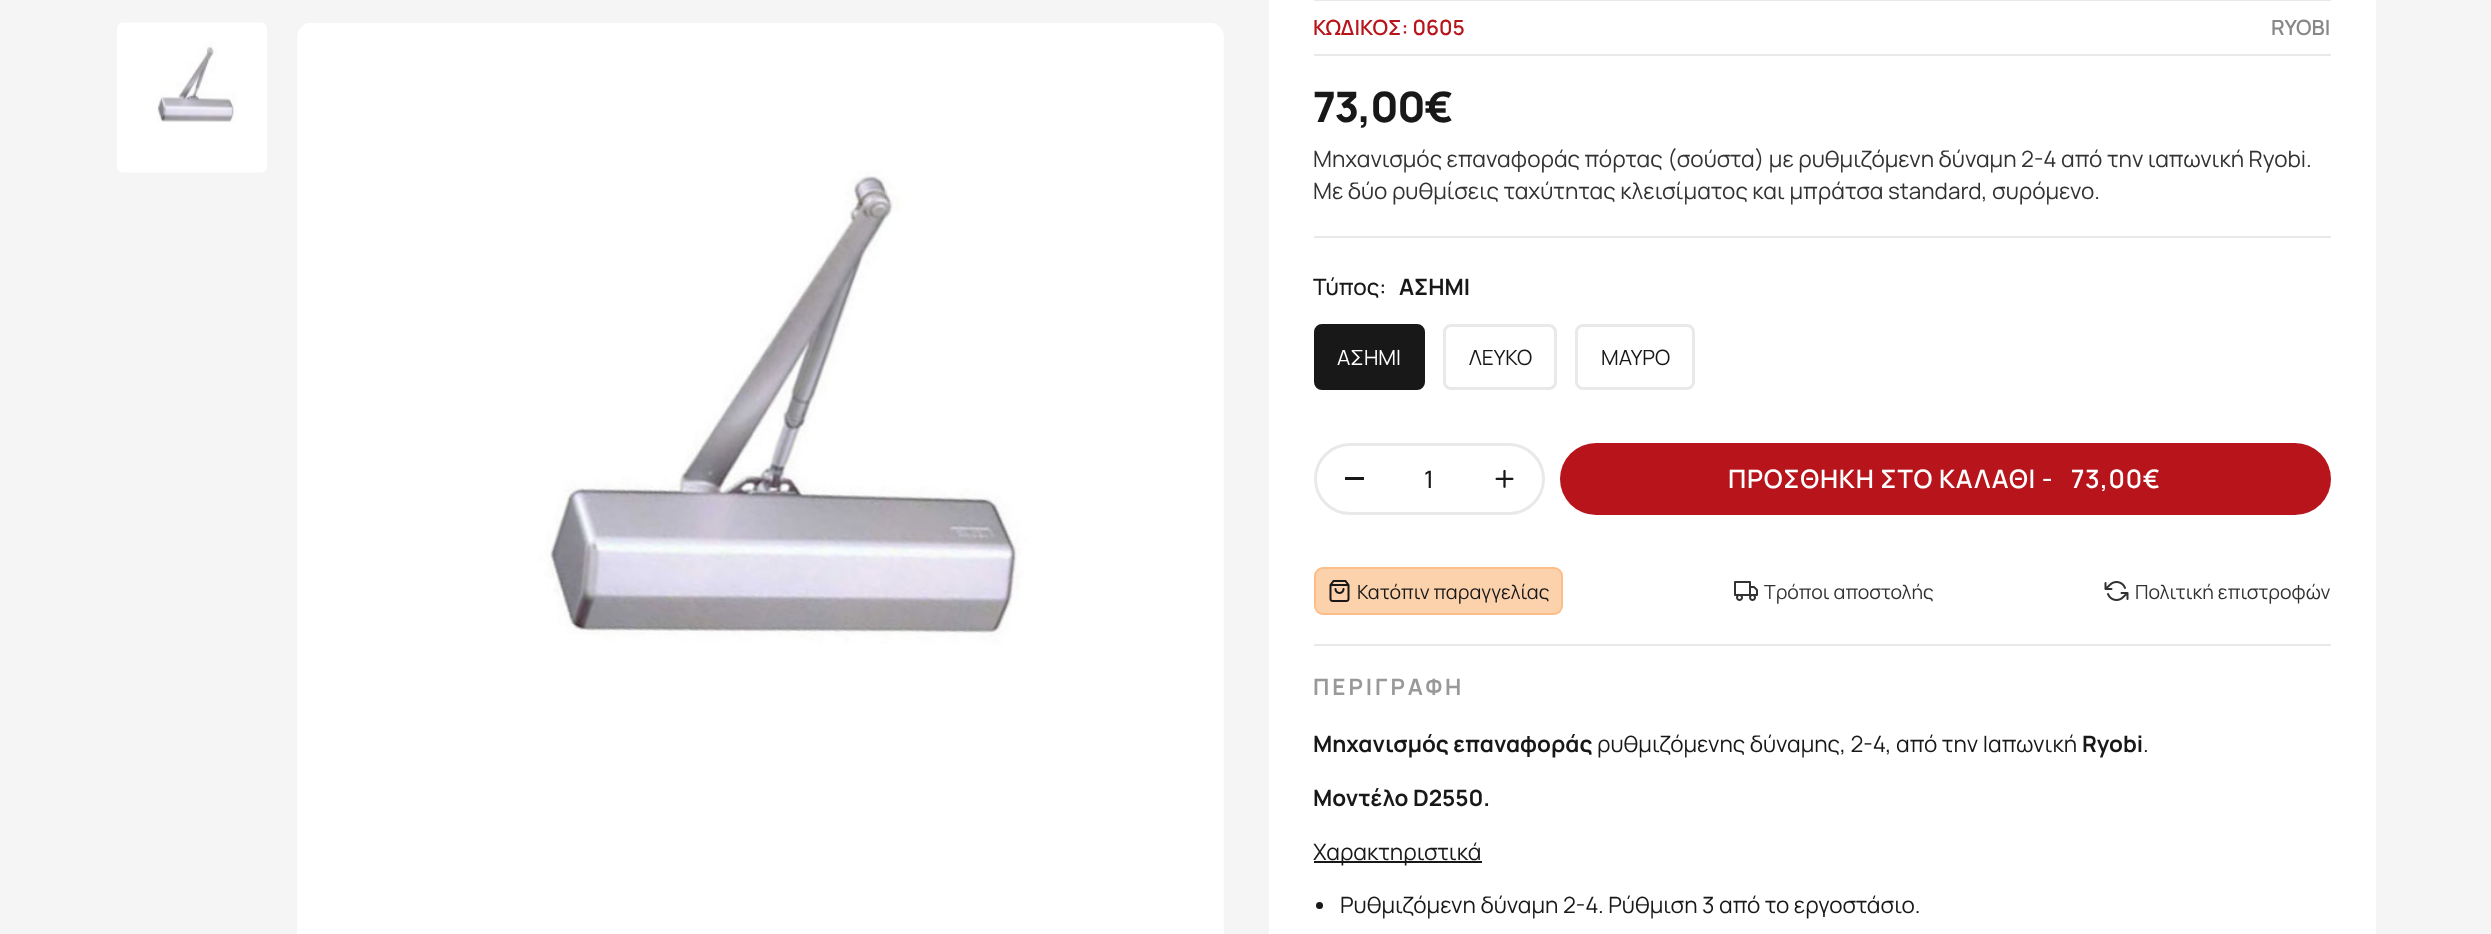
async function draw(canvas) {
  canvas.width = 2491
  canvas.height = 934
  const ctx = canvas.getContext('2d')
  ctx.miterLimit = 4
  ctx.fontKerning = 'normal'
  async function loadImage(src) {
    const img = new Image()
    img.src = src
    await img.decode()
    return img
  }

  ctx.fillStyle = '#f5f5f5'
  ctx.fillRect(0, 0, 2491, 934)
  ctx.drawImage(await loadImage('image0.png'), 117, 22, 150, 151)
  ctx.drawImage(await loadImage('image1.png'), 297, 23, 927, 911)
  ctx.fillStyle = '#fff'
  ctx.fillRect(1269, 0, 1107, 934)
  ctx.fillStyle = '#e9e9e9'
  ctx.fillRect(1314, 236, 1017, 2)
  ctx.fillRect(1314, 0, 1017, 1)
  ctx.fillRect(1314, 54, 1017, 2)
  ctx.font = '600 21px Manrope'
  ctx.fillStyle = '#b7151b'
  ctx.fillText('ΚΩΔΙΚΟΣ: 0605', 1313, 35)
  ctx.fillStyle = '#888'
  ctx.fillText('RYOBI', 2271, 35)
  ctx.letterSpacing = '-1.25px'
  ctx.font = '800 42px Manrope'
  ctx.fillStyle = '#181818'
  ctx.fillText('73,00€', 1313, 122)
  ctx.letterSpacing = '0px'
  ctx.font = '22.5px Manrope'
  ctx.fillStyle = '#323232'
  ctx.fillText('Μηχανισμός επαναφοράς πόρτας (σούστα) με ρυθμιζόμενη δύναμη 2-4 από την ιαπωνική Ryobi.', 1313, 167)
  ctx.fillText('Με δύο ρυθμίσεις ταχύτητας κλεισίματος και μπράτσα standard, συρόμενο.', 1313, 199)
  ctx.font = '500 22.5px Manrope'
  ctx.fillStyle = '#181818'
  ctx.fillText('Τύπος:', 1313, 295)
  ctx.font = 'bold 22.5px Manrope'
  ctx.fillText('ΑΣΗΜΙ', 1399, 295)
  ctx.beginPath()
  ctx.roundRect(1315, 325, 109, 64, 7)
  ctx.fill()
  ctx.strokeStyle = '#181818'
  ctx.lineWidth = 2
  ctx.stroke()
  ctx.font = '21px Manrope'
  ctx.fillStyle = '#fff'
  ctx.fillText('ΑΣΗΜΙ', 1337, 365)
  ctx.beginPath()
  ctx.roundRect(1444.5, 325.5, 111, 63, 6.5)
  ctx.strokeStyle = '#e9e9e9'
  ctx.lineWidth = 3
  ctx.stroke()
  ctx.fillStyle = '#181818'
  ctx.fillText('ΛΕΥΚΟ', 1469, 365)
  ctx.beginPath()
  ctx.roundRect(1576.5, 325.5, 117, 63, 6.5)
  ctx.stroke()
  ctx.fillText('ΜΑΥΡΟ', 1601, 365)
  ctx.beginPath()
  ctx.roundRect(1315.5, 444.5, 228, 69, 34.5)
  ctx.stroke()
  ctx.fillRect(1345, 477, 19, 3)
  ctx.font = '500 24px Manrope'
  ctx.fillText('1', 1424, 488)
  ctx.drawImage(await loadImage('image2.png'), 1495, 469, 19, 19)
  ctx.fillStyle = '#b7151b'
  ctx.beginPath()
  ctx.roundRect(1560, 443, 771, 72, 36)
  ctx.fill()
  ctx.letterSpacing = '0.75px'
  ctx.font = '600 25.5px Manrope'
  ctx.fillStyle = '#fff'
  ctx.fillText('ΠΡΟΣΘΗΚΗ ΣΤΟ ΚΑΛΑΘΙ -', 1728, 488)
  ctx.fillText('73,00€', 2071, 488)
  ctx.fillStyle = '#e9e9e9'
  ctx.fillRect(1314, 644, 1017, 2)
  ctx.fillStyle = '#fcd2ad'
  ctx.beginPath()
  ctx.roundRect(1315, 568, 247, 46, 8)
  ctx.fill()
  ctx.strokeStyle = '#fcbe86'
  ctx.lineWidth = 2
  ctx.stroke()
  ctx.drawImage(await loadImage('image3.png'), 1329, 580, 21, 22)
  ctx.letterSpacing = '0px'
  ctx.font = '19.5px Manrope'
  ctx.fillStyle = '#181818'
  ctx.fillText('Κατόπιν παραγγελίας', 1357, 599)
  ctx.drawImage(await loadImage('image4.png'), 1734, 581, 24, 20)
  ctx.fillStyle = '#323232'
  ctx.fillText('Τρόποι αποστολής', 1764, 599)
  ctx.drawImage(await loadImage('image5.png'), 2104, 581, 25, 20)
  ctx.fillText('Πολιτική επιστροφών', 2135, 599)
  ctx.letterSpacing = '3px'
  ctx.font = 'bold 22.5px Manrope'
  ctx.fillStyle = '#999'
  ctx.fillText('ΠΕΡΙΓΡΑΦΗ', 1313, 695)
  ctx.letterSpacing = '0px'
  ctx.fillStyle = '#181818'
  ctx.fillText('Μηχανισμός επαναφοράς', 1313, 752)
  ctx.font = '22.5px Manrope'
  ctx.fillText('ρυθμιζόμενης δύναμης, 2-4, από την Ιαπωνική', 1597, 752)
  ctx.font = 'bold 22.5px Manrope'
  ctx.fillText('Ryobi', 2082, 752)
  ctx.font = '22.5px Manrope'
  ctx.fillText('.', 2143, 752)
  ctx.font = 'bold 22.5px Manrope'
  ctx.fillText('Μοντέλο D2550.', 1313, 806)
  ctx.fillRect(1314, 861, 168, 2)
  ctx.font = '22.5px Manrope'
  ctx.fillText('Χαρακτηριστικά', 1313, 860)
  ctx.beginPath()
  ctx.arc(1319.5, 905.5, 3.5, 0, 2 * Math.PI)
  ctx.fill()
  ctx.fillText('Ρυθμιζόμενη δύναμη 2-4. Ρύθμιση 3 από το εργοστάσιο.', 1340, 913)
}

draw(document.querySelector('canvas'))
